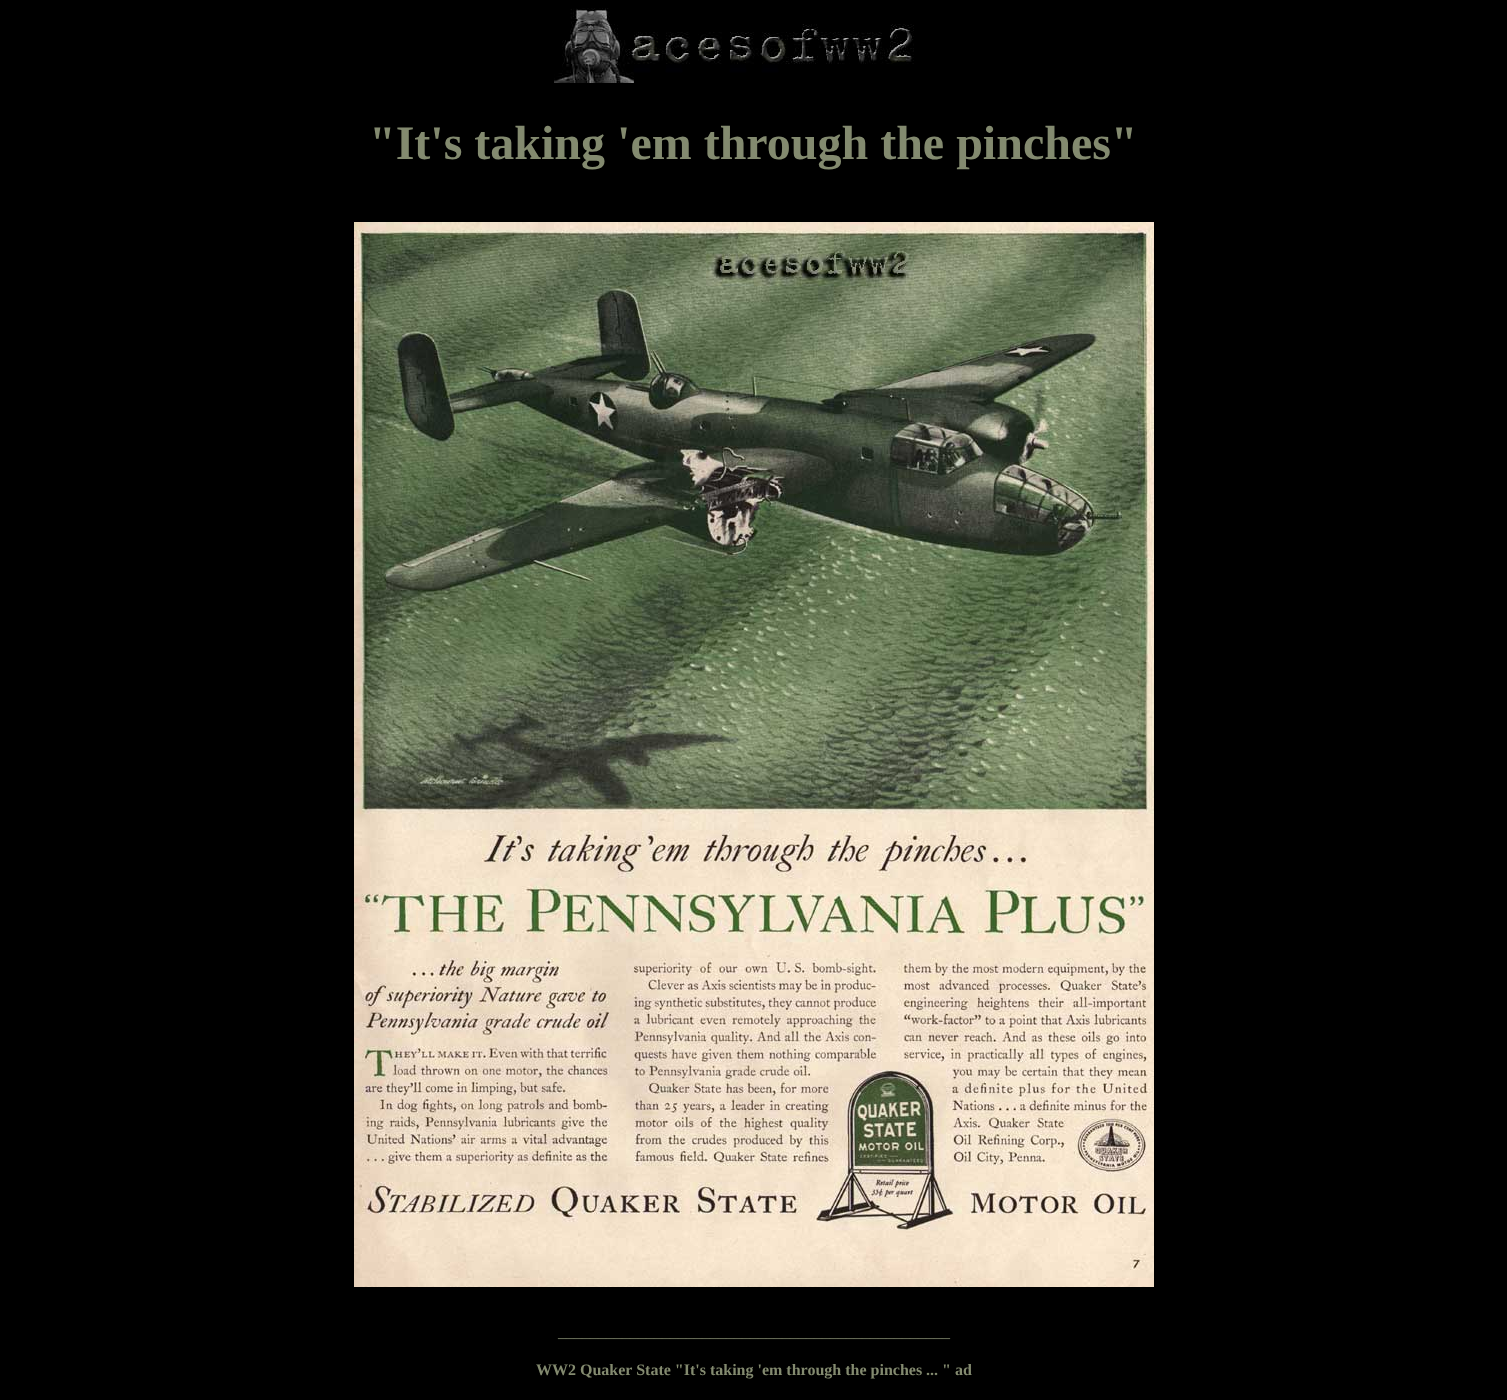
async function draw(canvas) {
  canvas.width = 1507
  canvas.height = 1400
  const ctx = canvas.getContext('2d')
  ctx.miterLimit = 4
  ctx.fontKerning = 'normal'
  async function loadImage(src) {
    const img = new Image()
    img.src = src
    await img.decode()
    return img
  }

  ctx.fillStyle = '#000'
  ctx.fillRect(0, 0, 1507, 1400)
  ctx.drawImage(await loadImage('image0.png'), 554, 8, 360, 75)
  ctx.font = 'bold 48px Liberation Serif'
  ctx.fillStyle = '#838a6f'
  ctx.fillText('"It\'s taking \'em through the pinches"', 369, 159)
  ctx.drawImage(await loadImage('image1.png'), 354, 222, 800, 1065)
  ctx.font = '16px Liberation Serif'
  ctx.fillText('_________________________________________________', 558, 1337)
  ctx.font = 'bold 16px Liberation Serif'
  ctx.fillText('WW2 Quaker State "It\'s taking \'em through the pinches ... " ad', 536, 1375)
}

draw(document.querySelector('canvas'))
